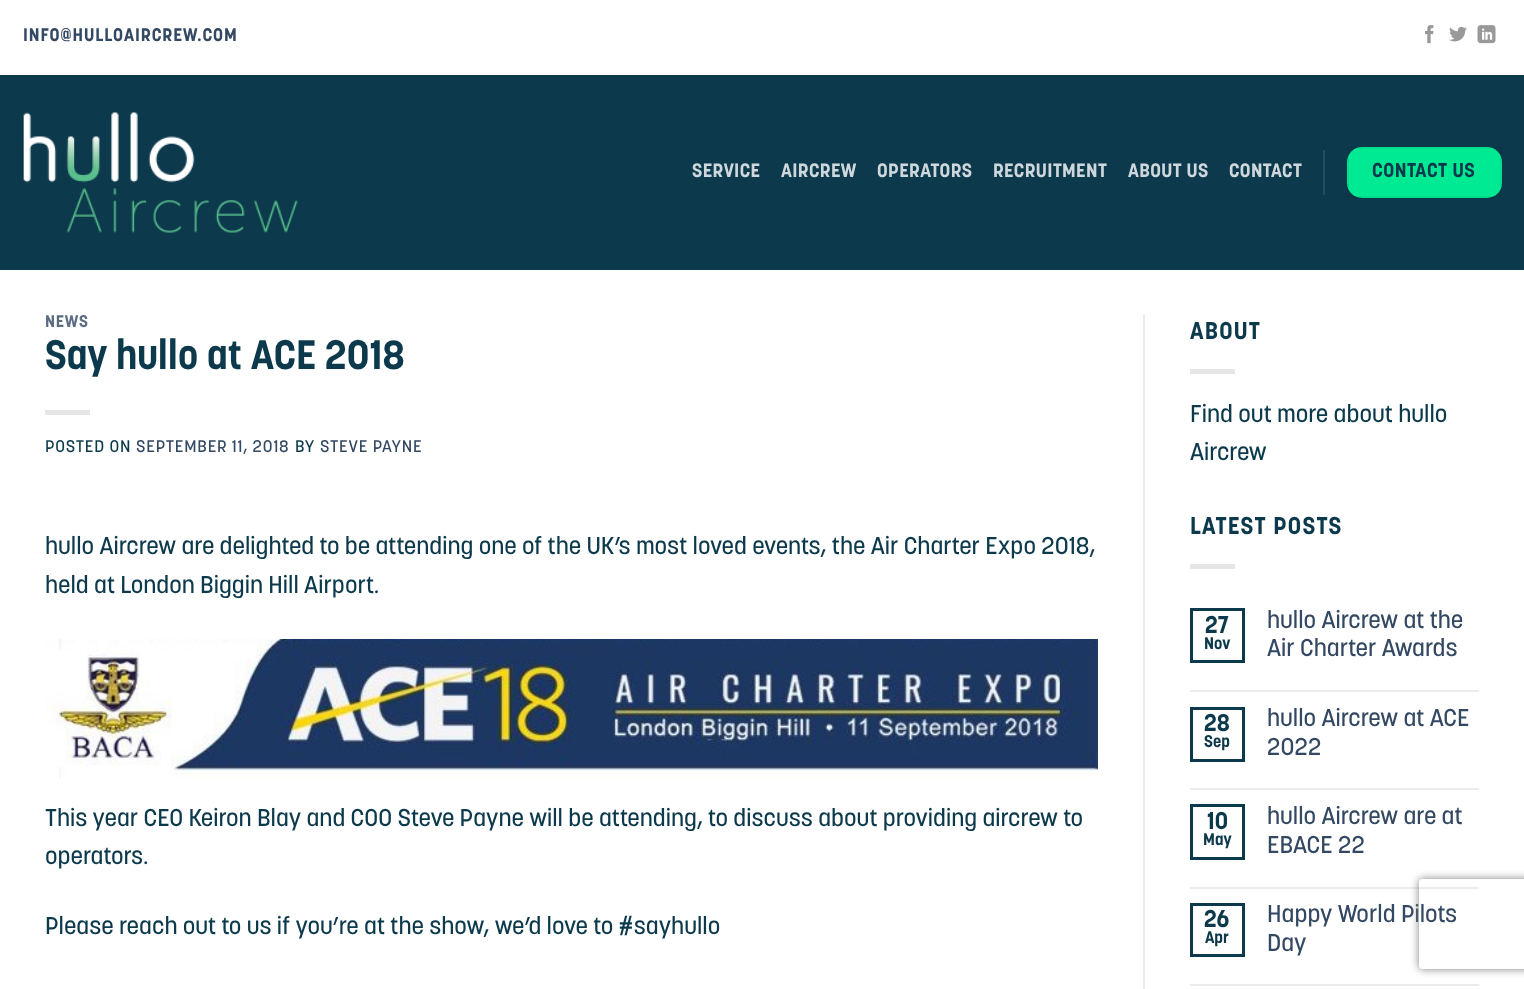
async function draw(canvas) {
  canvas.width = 1524
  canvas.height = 989
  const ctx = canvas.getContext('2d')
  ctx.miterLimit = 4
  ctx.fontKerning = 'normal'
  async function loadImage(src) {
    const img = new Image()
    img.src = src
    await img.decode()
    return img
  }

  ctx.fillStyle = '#fff'
  ctx.fillRect(0, 0, 1524, 989)
  ctx.fillStyle = '#0c394c'
  ctx.fillRect(0, 75, 1524, 195)
  ctx.letterSpacing = '0.9px'
  ctx.font = 'bold 18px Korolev'
  ctx.fillStyle = '#334862'
  ctx.fillText('INFO@HULLOAIRCREW.COM', 23, 41)
  ctx.drawImage(await loadImage('image0.png'), 1425, 25, 9, 19)
  ctx.drawImage(await loadImage('image1.png'), 1449, 26, 18, 16)
  ctx.drawImage(await loadImage('image2.png'), 1477, 25, 19, 19)
  ctx.drawImage(await loadImage('image3.png'), 23, 112, 275, 121)
  ctx.letterSpacing = '0.4px'
  ctx.font = 'bold 19.25px Korolev'
  ctx.fillStyle = '#ced7db'
  ctx.fillText('SERVICE', 692, 177)
  ctx.fillText('AIRCREW', 781, 177)
  ctx.fillText('OPERATORS', 877, 177)
  ctx.fillText('RECRUITMENT', 993, 177)
  ctx.fillText('ABOUT US', 1128, 177)
  ctx.fillText('CONTACT', 1229, 177)
  ctx.fillStyle = '#244d5e'
  ctx.fillRect(1323, 150, 2, 45)
  ctx.fillStyle = '#00ea93'
  ctx.beginPath()
  ctx.roundRect(1347, 147, 155, 51, 15)
  ctx.fill()
  ctx.strokeStyle = '#0000000d'
  ctx.lineWidth = 2
  ctx.strokeRect(1348, 148, 153, 49)
  ctx.letterSpacing = '0.5px'
  ctx.font = 'bold 19.75px Korolev'
  ctx.fillStyle = '#0c3a4c'
  ctx.fillText('CONTACT US', 1372, 177)
  ctx.letterSpacing = '0.8px'
  ctx.font = 'bold 16.75px Korolev'
  ctx.fillStyle = '#5c6d81'
  ctx.fillText('NEWS', 45, 327)
  ctx.letterSpacing = '0px'
  ctx.font = 'bold 40.75px Korolev'
  ctx.fillStyle = '#0c3a4c'
  ctx.fillText('Say hullo at ACE 2018', 45, 369)
  ctx.fillStyle = '#e6e6e6'
  ctx.fillRect(45, 410, 45, 5)
  ctx.letterSpacing = '0.8px'
  ctx.font = '500 16.75px Korolev'
  ctx.fillStyle = '#0c3a4c'
  ctx.fillText('POSTED ON', 45, 452)
  ctx.fillStyle = '#334862'
  ctx.fillText('SEPTEMBER 11, 2018', 136, 452)
  ctx.fillStyle = '#0c3a4c'
  ctx.fillText('BY', 295, 452)
  ctx.fillStyle = '#334862'
  ctx.fillText('STEVE PAYNE', 320, 452)
  ctx.letterSpacing = '0px'
  ctx.font = '500 24px Korolev'
  ctx.fillStyle = '#0c3a4c'
  ctx.fillText('hullo Aircrew are delighted to be attending one of the UK’s most loved events, the Air Charter Expo 2018,', 45, 554)
  ctx.fillText('held at London Biggin Hill Airport.', 45, 593)
  ctx.drawImage(await loadImage('image4.png'), 45, 639, 1053, 140)
  ctx.fillText('This year CEO Keiron Blay and COO Steve Payne will be attending, to discuss about providing aircrew to', 45, 826)
  ctx.fillText('operators.', 45, 864)
  ctx.fillText('Please reach out to us if you’re at the show, we’d love to #sayhullo', 45, 934)
  ctx.fillStyle = '#ececec'
  ctx.fillRect(1143, 315, 2, 674)
  ctx.letterSpacing = '1.25px'
  ctx.font = 'bold 24px Korolev'
  ctx.fillStyle = '#0c3a4c'
  ctx.fillText('ABOUT', 1190, 339)
  ctx.fillStyle = '#e6e6e6'
  ctx.fillRect(1190, 369, 45, 5)
  ctx.letterSpacing = '0px'
  ctx.font = '500 24px Korolev'
  ctx.fillStyle = '#0c3a4c'
  ctx.fillText('Find out more about hullo', 1190, 422)
  ctx.fillText('Aircrew', 1190, 460)
  ctx.letterSpacing = '1.25px'
  ctx.font = 'bold 24px Korolev'
  ctx.fillText('LATEST POSTS', 1190, 534)
  ctx.fillStyle = '#e6e6e6'
  ctx.fillRect(1190, 564, 45, 5)
  ctx.strokeStyle = '#0c3a4c'
  ctx.lineWidth = 3
  ctx.strokeRect(1191.5, 609.5, 52, 52)
  ctx.letterSpacing = '0px'
  ctx.fillStyle = '#0c3a4c'
  ctx.fillText('27', 1205, 633)
  ctx.font = 'bold 16.75px Korolev'
  ctx.fillText('Nov', 1204, 649)
  ctx.font = '500 24px Korolev'
  ctx.fillStyle = '#334862'
  ctx.fillText('hullo Aircrew at the', 1267, 628)
  ctx.fillText('Air Charter Awards', 1267, 656)
  ctx.fillStyle = '#ececec'
  ctx.fillRect(1190, 690, 289, 2)
  ctx.strokeRect(1191.5, 708.5, 52, 52)
  ctx.font = 'bold 24px Korolev'
  ctx.fillStyle = '#0c3a4c'
  ctx.fillText('28', 1204, 731)
  ctx.font = 'bold 16.75px Korolev'
  ctx.fillText('Sep', 1204, 747)
  ctx.font = '500 24px Korolev'
  ctx.fillStyle = '#334862'
  ctx.fillText('hullo Aircrew at ACE', 1267, 726)
  ctx.fillText('2022', 1267, 755)
  ctx.fillStyle = '#ececec'
  ctx.fillRect(1190, 788, 289, 2)
  ctx.strokeRect(1191.5, 805.5, 52, 53)
  ctx.font = 'bold 24px Korolev'
  ctx.fillStyle = '#0c3a4c'
  ctx.fillText('10', 1207, 829)
  ctx.font = 'bold 16.75px Korolev'
  ctx.fillText('May', 1203, 845)
  ctx.font = '500 24px Korolev'
  ctx.fillStyle = '#334862'
  ctx.fillText('hullo Aircrew are at', 1267, 824)
  ctx.fillText('EBACE 22', 1267, 853)
  ctx.fillStyle = '#ececec'
  ctx.fillRect(1190, 887, 289, 2)
  ctx.strokeRect(1191.5, 904.5, 52, 51)
  ctx.font = 'bold 24px Korolev'
  ctx.fillStyle = '#0c3a4c'
  ctx.fillText('26', 1204, 927)
  ctx.font = 'bold 16.75px Korolev'
  ctx.fillText('Apr', 1205, 943)
  ctx.font = '500 24px Korolev'
  ctx.fillStyle = '#334862'
  ctx.fillText('Happy World Pilots', 1267, 922)
  ctx.fillText('Day', 1267, 951)
  ctx.fillStyle = '#ececec'
  ctx.fillRect(1190, 984, 289, 2)
  ctx.save()
  ctx.beginPath()
  ctx.moveTo(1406, 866)
  ctx.lineTo(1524, 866)
  ctx.lineTo(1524, 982)
  ctx.lineTo(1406, 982)
  ctx.closePath()
  ctx.moveTo(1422, 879)
  ctx.lineTo(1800, 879)
  ctx.bezierCurveTo(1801.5, 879, 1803, 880.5, 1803, 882)
  ctx.lineTo(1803, 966)
  ctx.bezierCurveTo(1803, 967.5, 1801.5, 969, 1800, 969)
  ctx.lineTo(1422, 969)
  ctx.bezierCurveTo(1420.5, 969, 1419, 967.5, 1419, 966)
  ctx.lineTo(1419, 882)
  ctx.bezierCurveTo(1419, 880.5, 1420.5, 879, 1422, 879)
  ctx.closePath()
  ctx.clip('evenodd')
  ctx.fillStyle = '#808080'
  ctx.filter = 'blur(4px)'
  ctx.beginPath()
  ctx.roundRect(1419, 879, 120, 90, 3)
  ctx.fill()
  ctx.filter = 'none'
  ctx.restore()
}

draw(document.querySelector('canvas'))
